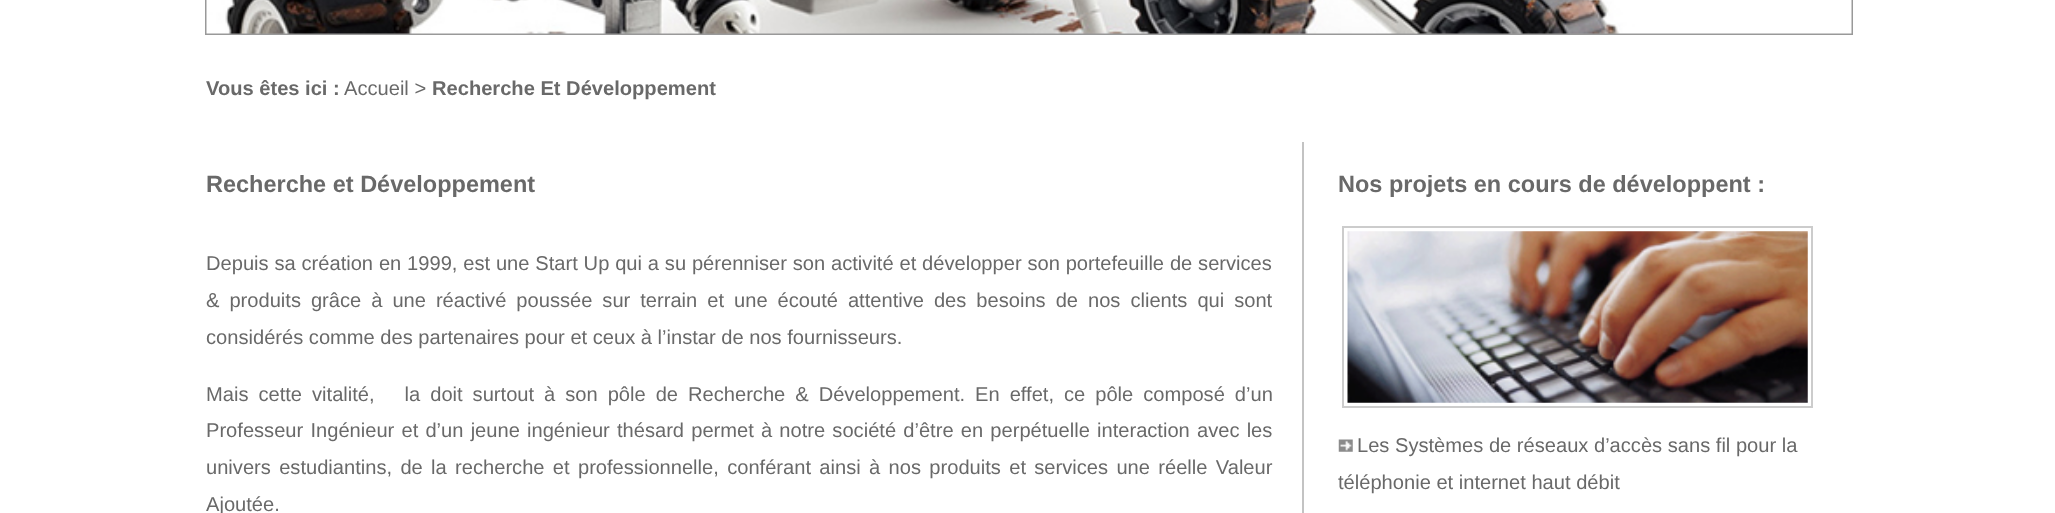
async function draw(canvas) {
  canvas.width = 2055
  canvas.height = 513
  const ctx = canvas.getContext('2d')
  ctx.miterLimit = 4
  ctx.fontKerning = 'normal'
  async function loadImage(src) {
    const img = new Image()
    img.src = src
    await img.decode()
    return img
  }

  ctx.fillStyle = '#fff'
  ctx.fillRect(0, 0, 2055, 513)
  ctx.strokeStyle = '#999'
  ctx.lineWidth = 2
  ctx.strokeRect(206, -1, 1646, 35)
  ctx.drawImage(await loadImage('image0.png'), 206, 0, 1646, 34)
  ctx.font = 'bold 20.12px Liberation Sans'
  ctx.fillStyle = '#696969'
  ctx.fillText('Vous êtes ici :', 206, 95)
  ctx.font = '20.12px Liberation Sans'
  ctx.fillText('Accueil >', 344, 95)
  ctx.font = 'bold 20.12px Liberation Sans'
  ctx.fillText('Recherche Et Développement', 432, 95)
  ctx.fillStyle = '#c3c3c3'
  ctx.fillRect(1302, 142, 2, 371)
  ctx.font = 'bold 23.5px Liberation Sans'
  ctx.fillStyle = '#696969'
  ctx.fillText('Recherche et Développement', 206, 192)
  ctx.wordSpacing = '0.25px'
  ctx.font = '20.12px Liberation Sans'
  ctx.fillText('Depuis sa création en 1999, est une Start Up qui a su pérenniser son activité et développer son portefeuille de services', 206, 270)
  ctx.wordSpacing = '4.4px'
  ctx.fillText('& produits grâce à une réactivé poussée sur terrain et une écouté attentive des besoins de nos clients qui sont', 206, 307)
  ctx.wordSpacing = '0px'
  ctx.fillText('considérés comme des partenaires pour et ceux à l’instar de nos fournisseurs.', 206, 344)
  ctx.wordSpacing = '4.4px'
  ctx.fillText('Mais cette vitalité,   la doit surtout à son pôle de Recherche & Développement. En effet, ce pôle composé d’un', 206, 401)
  ctx.wordSpacing = '1.6px'
  ctx.fillText('Professeur Ingénieur et d’un jeune ingénieur thésard permet à notre société d’être en perpétuelle interaction avec les', 206, 437)
  ctx.wordSpacing = '2.75px'
  ctx.fillText('univers estudiantins, de la recherche et professionnelle, conférant ainsi à nos produits et services une réelle Valeur', 206, 474)
  ctx.wordSpacing = '0px'
  ctx.fillText('Ajoutée.', 206, 511)
  ctx.font = 'bold 23.5px Liberation Sans'
  ctx.fillText('Nos projets en cours de développent :', 1338, 192)
  ctx.strokeStyle = '#ccc'
  ctx.strokeRect(1343, 227, 469, 180)
  ctx.drawImage(await loadImage('image1.png'), 1347, 231, 461, 172)
  ctx.drawImage(await loadImage('image2.png'), 1338, 439, 15, 13)
  ctx.font = '20.12px Liberation Sans'
  ctx.fillText('Les Systèmes de réseaux d’accès sans fil pour la', 1357, 452)
  ctx.fillText('téléphonie et internet haut débit', 1338, 489)
}

draw(document.querySelector('canvas'))
